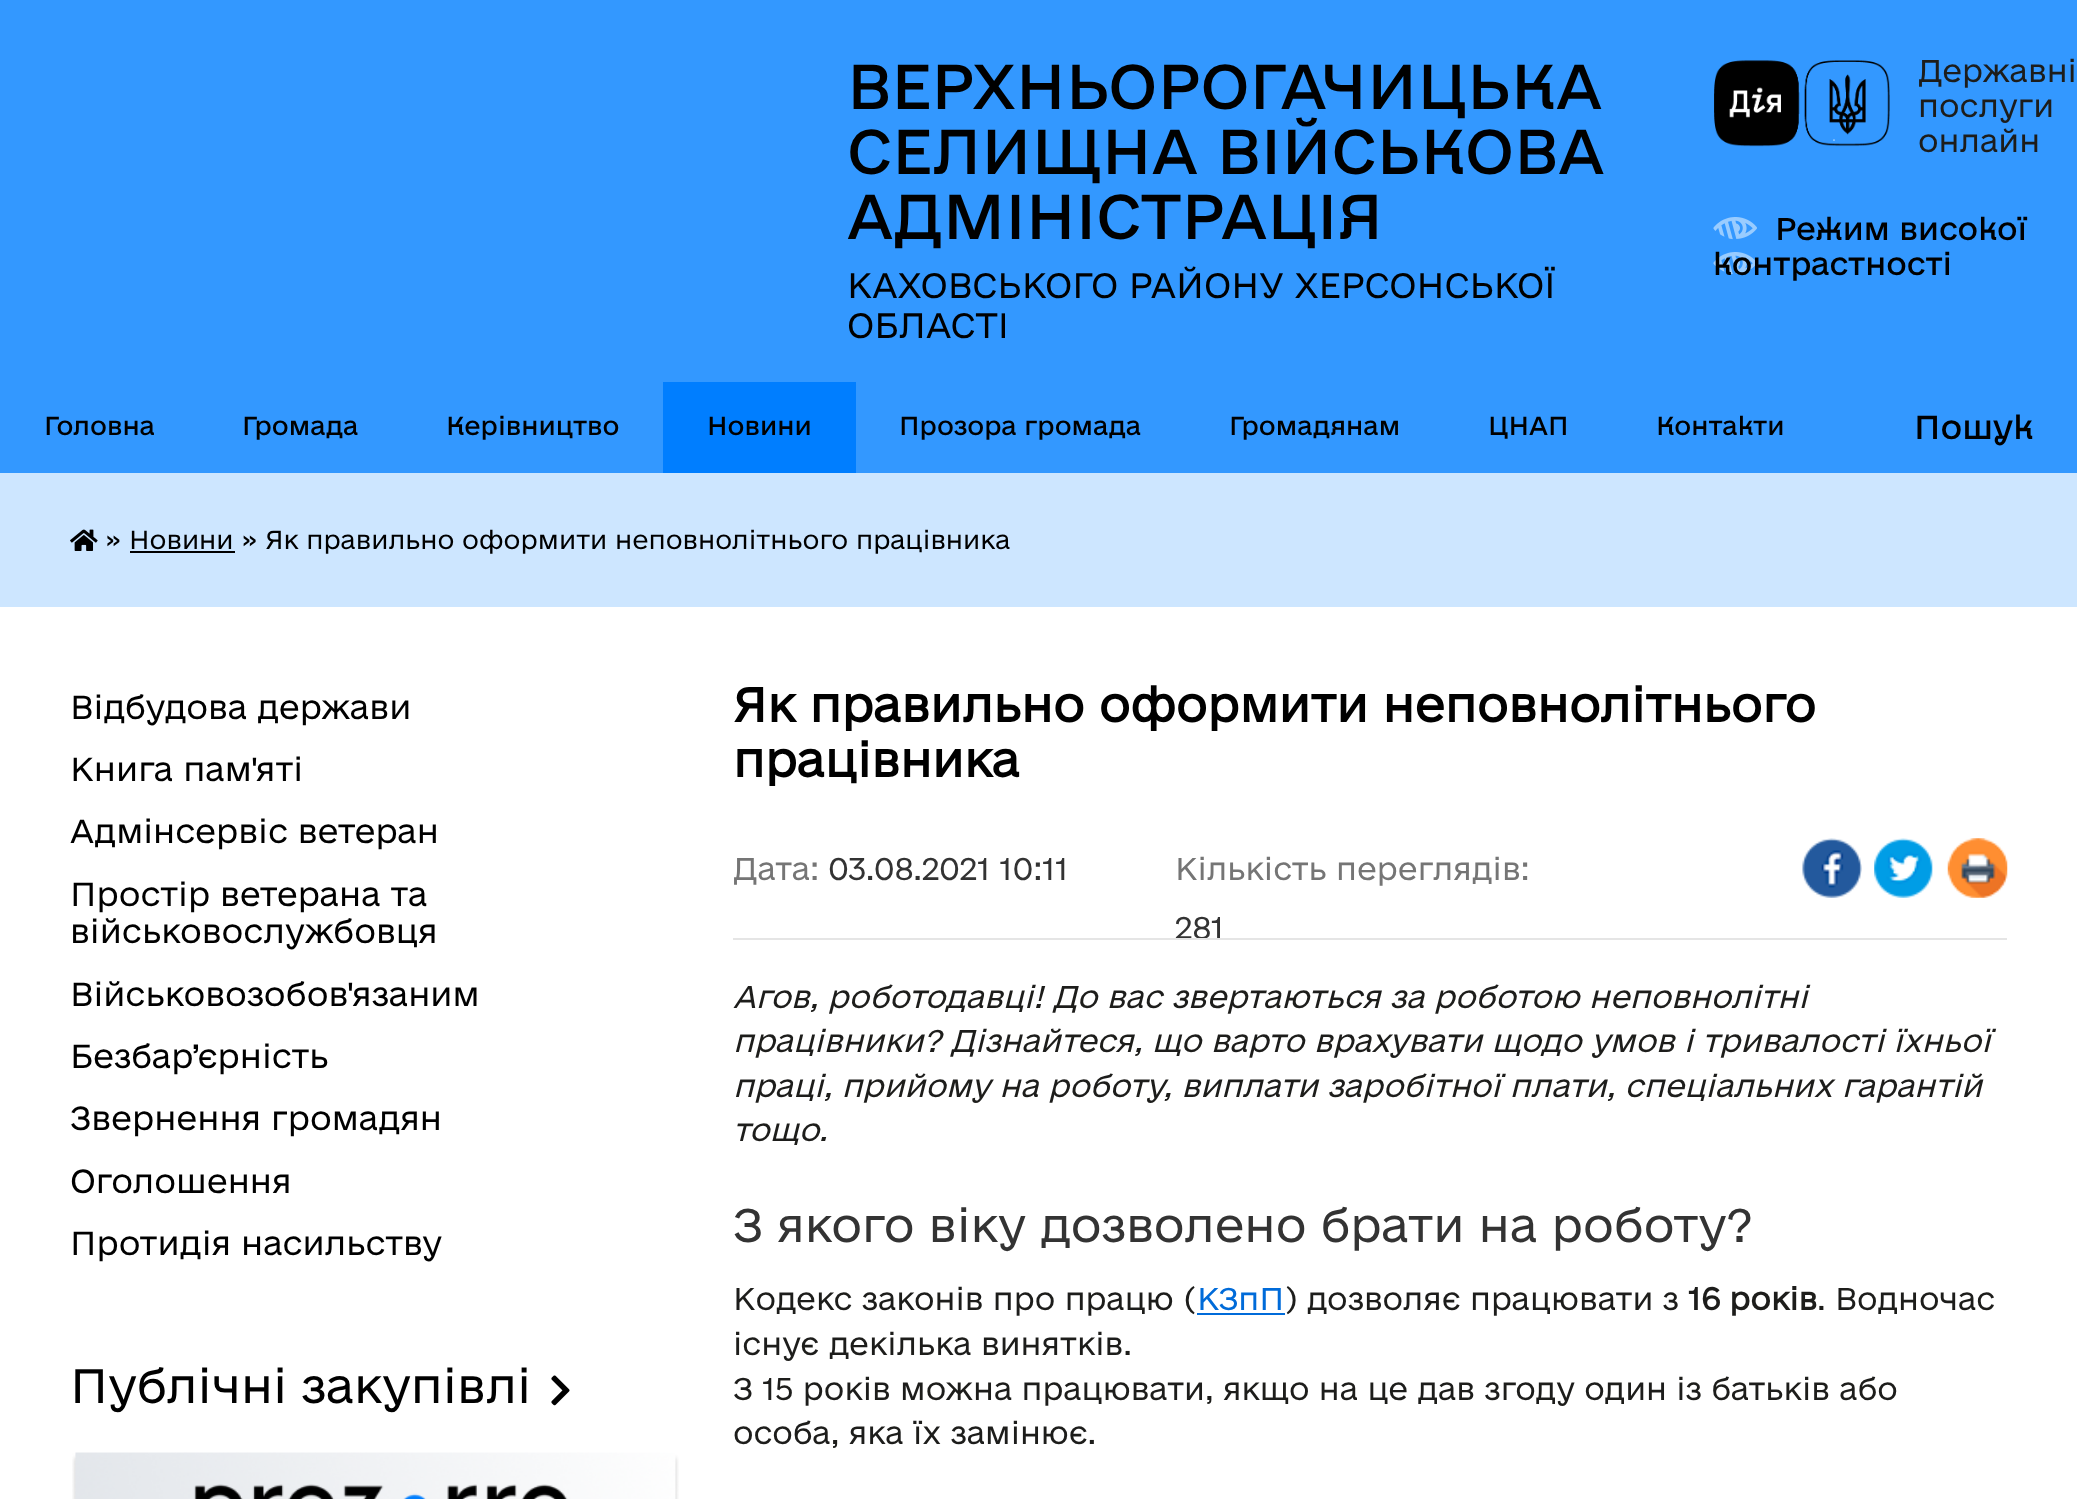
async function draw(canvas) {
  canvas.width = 2077
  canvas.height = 1499
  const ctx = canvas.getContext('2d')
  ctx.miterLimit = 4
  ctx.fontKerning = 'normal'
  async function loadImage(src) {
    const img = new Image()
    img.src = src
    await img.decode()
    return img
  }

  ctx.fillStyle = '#fff'
  ctx.fillRect(0, 0, 2077, 1499)
  ctx.fillStyle = '#3398ff'
  ctx.fillRect(0, 0, 2077, 473)
  ctx.font = '59.5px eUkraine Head'
  ctx.fillStyle = '#000'
  ctx.fillText('ВЕРХНЬОРОГАЧИЦЬКА', 847, 109)
  ctx.fillText('СЕЛИЩНА ВІЙСЬКОВА', 847, 174)
  ctx.fillText('АДМІНІСТРАЦІЯ', 847, 239)
  ctx.font = '300 33.25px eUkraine'
  ctx.fillText('КАХОВСЬКОГО РАЙОНУ ХЕРСОНСЬКОЇ', 847, 298)
  ctx.fillText('ОБЛАСТІ', 847, 338)
  ctx.drawImage(await loadImage('image0.png'), 1714, 60, 176, 87)
  ctx.font = '300 29.75px eUkraine'
  ctx.fillStyle = '#1d1d1b'
  ctx.fillText('Державні', 1918, 82)
  ctx.fillText('послуги', 1918, 117)
  ctx.fillText('онлайн', 1918, 152)
  ctx.drawImage(await loadImage('image1.png'), 1713, 217, 44, 58)
  ctx.font = '29.75px eUkraine Head'
  ctx.fillStyle = '#000'
  ctx.fillText('Режим високої', 1775, 240)
  ctx.fillText('контрастності', 1713, 275)
  ctx.font = '24.5px eUkraine Head'
  ctx.fillText('Головна', 44, 435)
  ctx.fillText('Громада', 242, 435)
  ctx.fillText('Керівництво', 446, 435)
  ctx.fillStyle = '#007eff'
  ctx.fillRect(663, 382, 193, 91)
  ctx.fillStyle = '#000'
  ctx.fillText('Новини', 707, 435)
  ctx.fillText('Прозора громада', 899, 435)
  ctx.fillText('Громадянам', 1229, 435)
  ctx.fillText('ЦНАП', 1488, 435)
  ctx.fillText('Контакти', 1656, 435)
  ctx.font = '31.5px eUkraine Head'
  ctx.fillText('Пошук', 1914, 439)
  ctx.fillStyle = '#cde6ff'
  ctx.fillRect(0, 473, 2077, 134)
  ctx.drawImage(await loadImage('image2.png'), 70, 529, 28, 22)
  ctx.font = '300 24.5px eUkraine'
  ctx.fillStyle = '#000'
  ctx.fillText('» Новини » Як правильно оформити неповнолітнього працівника', 105, 549)
  ctx.fillRect(130, 551, 105, 2)
  ctx.font = '300 31.5px eUkraine'
  ctx.fillText('Відбудова держави', 70, 719)
  ctx.fillText('Книга пам\'яті', 70, 781)
  ctx.fillText('Адмінсервіс ветеран', 70, 843)
  ctx.fillText('Простір ветерана та', 70, 906)
  ctx.fillText('військовослужбовця', 70, 943)
  ctx.fillText('Військовозобов\'язаним', 70, 1006)
  ctx.fillText('Безбар’єрність', 70, 1068)
  ctx.fillText('Звернення громадян', 70, 1130)
  ctx.fillText('Оголошення', 70, 1193)
  ctx.fillText('Протидія насильству', 70, 1255)
  ctx.font = '300 45.5px eUkraine'
  ctx.fillText('Публічні закупівлі', 70, 1403)
  ctx.drawImage(await loadImage('image3.png'), 551, 1375, 19, 31)
  ctx.drawImage(await loadImage('image4.png'), 72, 1452, 607, 47)
  ctx.font = 'bold 45.5px eUkraine'
  ctx.fillText('Як правильно оформити неповнолітнього', 733, 722)
  ctx.fillText('працівника', 733, 777)
  ctx.font = '300 29.75px eUkraine'
  ctx.fillStyle = '#757575'
  ctx.fillText('Дата:', 733, 880)
  ctx.fillStyle = '#333'
  ctx.fillText('03.08.2021 10:11', 828, 880)
  ctx.fillStyle = '#757575'
  ctx.fillText('Кількість переглядів:', 1175, 880)
  ctx.fillStyle = '#333'
  ctx.fillText('281', 1175, 939)
  ctx.drawImage(await loadImage('image5.png'), 1802, 838, 60, 60)
  ctx.drawImage(await loadImage('image6.png'), 1874, 838, 59, 60)
  ctx.drawImage(await loadImage('image7.png'), 1947, 838, 61, 60)
  ctx.fillStyle = '#e5e5e5'
  ctx.fillRect(733, 938, 1274, 2)
  ctx.font = 'italic 300 29.75px eUkraine'
  ctx.fillStyle = '#1d1d1b'
  ctx.fillText('Агов, роботодавці! До вас звертаються за роботою неповнолітні', 733, 1008)
  ctx.fillText('працівники? Дізнайтеся, що варто врахувати щодо умов і тривалості їхньої', 733, 1052)
  ctx.fillText('праці, прийому на роботу, виплати заробітної плати, спеціальних гарантій', 733, 1097)
  ctx.fillText('тощо.', 733, 1141)
  ctx.font = '300 44.6px eUkraine'
  ctx.fillStyle = '#333'
  ctx.fillText('З якого віку дозволено брати на роботу?', 733, 1242)
  ctx.font = '300 29.75px eUkraine'
  ctx.fillStyle = '#1d1d1b'
  ctx.fillText('Кодекс законів про працю (', 733, 1310)
  ctx.fillStyle = '#006bd9'
  ctx.fillText('КЗпП', 1197, 1310)
  ctx.fillRect(1197, 1313, 88, 2)
  ctx.fillStyle = '#1d1d1b'
  ctx.fillText(') дозволяє працювати з', 1284, 1310)
  ctx.font = 'bold 29.75px eUkraine'
  ctx.fillText('16 років', 1688, 1310)
  ctx.font = '300 29.75px eUkraine'
  ctx.fillText('. Водночас', 1817, 1310)
  ctx.fillText('існує декілька винятків.', 733, 1355)
  ctx.fillText('З 15 років можна працювати, якщо на це дав згоду один із батьків або', 733, 1400)
  ctx.fillText('особа, яка їх замінює.', 733, 1444)
}

draw(document.querySelector('canvas'))
